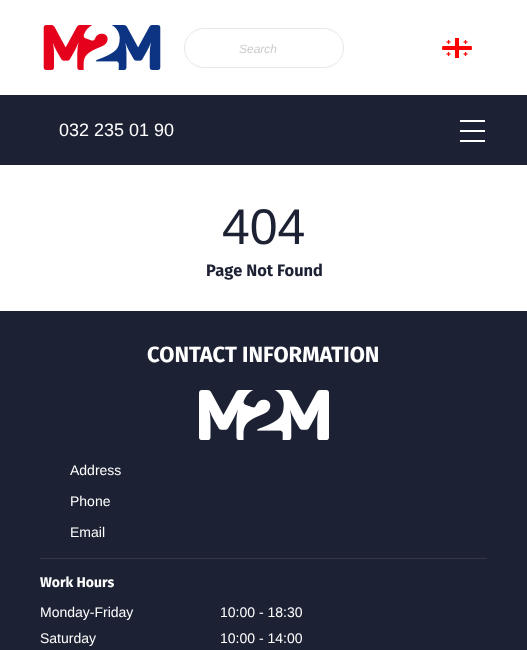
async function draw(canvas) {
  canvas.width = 527
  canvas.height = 650
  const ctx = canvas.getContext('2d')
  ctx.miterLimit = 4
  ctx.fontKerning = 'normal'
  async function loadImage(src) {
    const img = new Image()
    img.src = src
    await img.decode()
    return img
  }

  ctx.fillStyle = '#fff'
  ctx.fillRect(0, 0, 527, 650)
  ctx.drawImage(await loadImage('image0.png'), 43, 25, 118, 45)
  ctx.beginPath()
  ctx.roundRect(184.5, 28.5, 159, 39, 19.5)
  ctx.strokeStyle = '#e7e7e7'
  ctx.stroke()
  ctx.font = 'italic 12px Liberation Sans'
  ctx.fillStyle = '#ccc'
  ctx.fillText('Search', 239, 53)
  ctx.drawImage(await loadImage('image1.png'), 442, 38, 30, 20)
  ctx.fillStyle = '#1c2133'
  ctx.fillRect(0, 95, 527, 70)
  ctx.font = '18px Liberation Sans'
  ctx.fillStyle = '#fff'
  ctx.fillText('032 235 01 90', 59, 136)
  ctx.fillRect(460, 120, 25, 2)
  ctx.fillRect(460, 130, 25, 2)
  ctx.fillRect(460, 140, 25, 2)
  ctx.font = '50px Liberation Sans'
  ctx.fillStyle = '#1c2133'
  ctx.fillText('404', 222, 244)
  ctx.font = 'bold 16.5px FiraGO'
  ctx.fillText('Page Not Found', 206, 276)
  ctx.fillRect(0, 311, 527, 339)
  ctx.font = 'bold 22px FiraGO'
  ctx.fillStyle = '#fff'
  ctx.fillText('CONTACT INFORMATION', 147, 362)
  ctx.drawImage(await loadImage('image2.png'), 199, 390, 130, 50)
  ctx.fillStyle = '#333747'
  ctx.fillRect(40, 558, 447, 1)
  ctx.font = '14px Liberation Sans'
  ctx.fillStyle = '#fff'
  ctx.fillText('Address', 70, 475)
  ctx.fillText('Phone', 70, 506)
  ctx.fillText('Email', 70, 537)
  ctx.font = 'bold 14px FiraGO'
  ctx.fillText('Work Hours', 40, 587)
  ctx.font = '14px Liberation Sans'
  ctx.fillText('Monday-Friday', 40, 617)
  ctx.fillText('10:00 - 18:30', 220, 617)
  ctx.fillText('Saturday', 40, 643)
  ctx.fillText('10:00 - 14:00', 220, 643)
}

draw(document.querySelector('canvas'))
